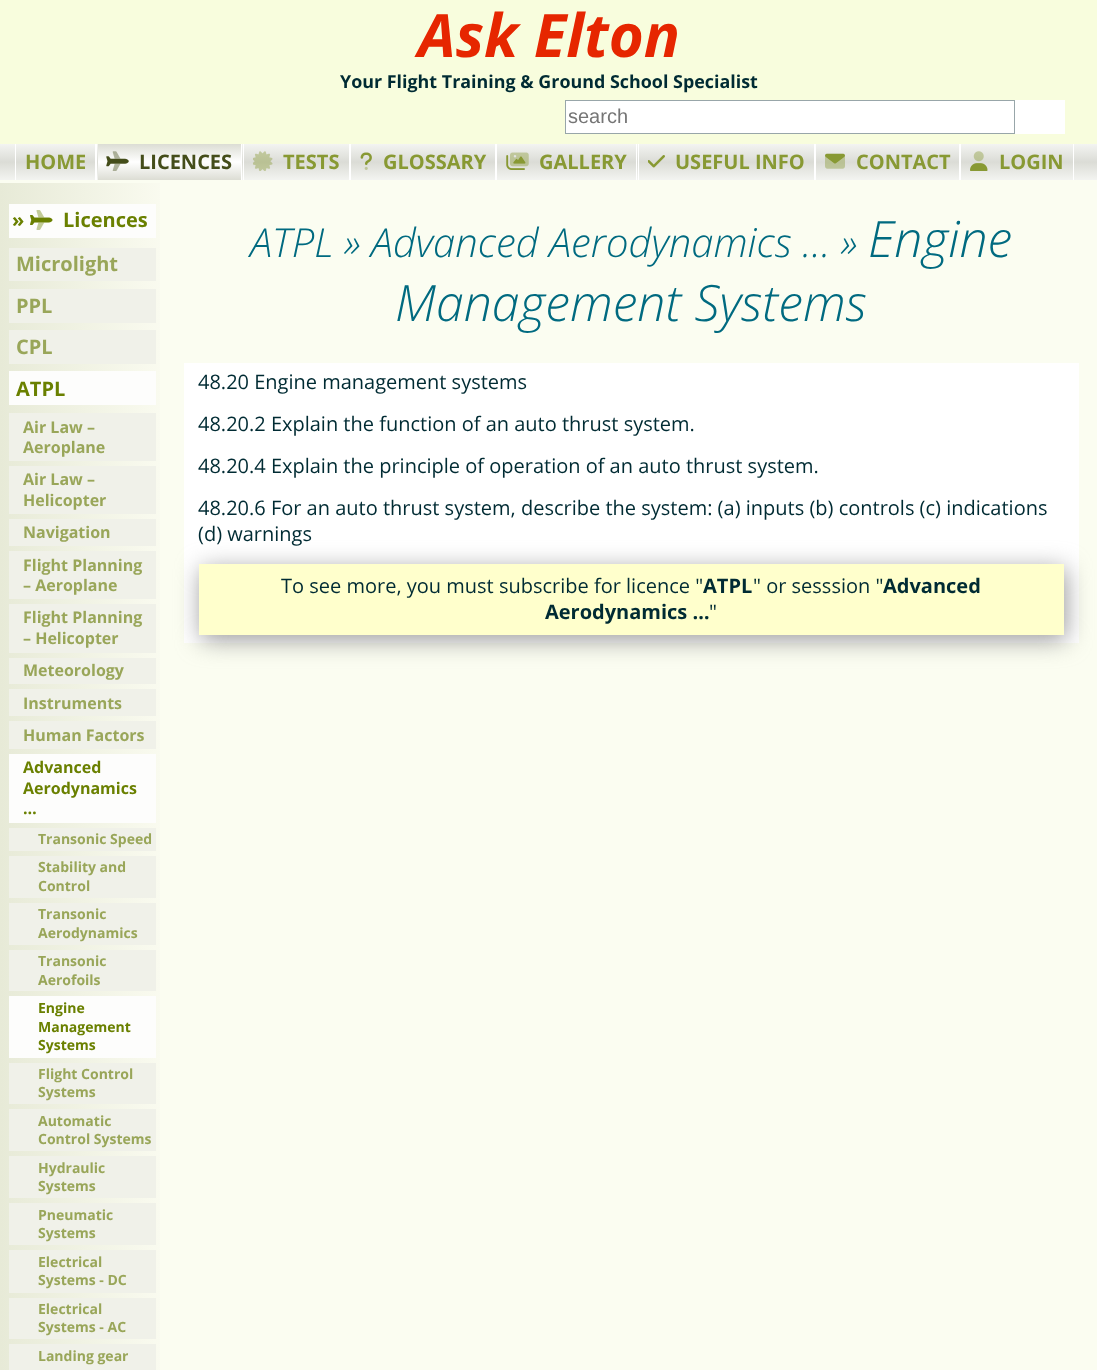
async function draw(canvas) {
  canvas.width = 1097
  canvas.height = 1370
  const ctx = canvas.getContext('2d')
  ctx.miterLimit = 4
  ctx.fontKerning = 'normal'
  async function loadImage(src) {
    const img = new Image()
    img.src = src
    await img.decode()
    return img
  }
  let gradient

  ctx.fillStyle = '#fbfdf1'
  ctx.fillRect(0, 0, 1097, 1370)
  ctx.fillStyle = '#f8fddd'
  ctx.fillRect(0, 0, 1097, 144)
  ctx.font = 'italic bold 60px Open Sans'
  ctx.fillStyle = '#e62600'
  ctx.fillText('Ask Elton', 418, 57)
  ctx.font = 'bold 17.9px Open Sans'
  ctx.fillStyle = '#002b33'
  ctx.fillText('Your Flight Training & Ground School Specialist', 340, 88)
  ctx.fillStyle = '#fff'
  ctx.fillRect(566, 100, 499, 34)
  ctx.strokeStyle = '#98a6a9'
  ctx.strokeRect(565.5, 100.5, 449, 33)
  ctx.font = '20px Liberation Sans'
  ctx.fillStyle = '#757575'
  ctx.fillText('search', 568, 123)
  gradient = ctx.createLinearGradient(549, 144, 549, 180)
  gradient.addColorStop(0, '#f3f4f1')
  gradient.addColorStop(0.5, '#dbdcd6')
  gradient.addColorStop(1, '#f3f4f1')
  ctx.fillStyle = gradient
  ctx.fillRect(0, 144, 1097, 36)
  ctx.fillStyle = '#fff'
  ctx.fillRect(95, 144, 2, 36)
  ctx.fillRect(15, 144, 1, 36)
  ctx.font = 'bold 20px Open Sans'
  ctx.fillStyle = '#893'
  ctx.fillText('HOME', 25, 169)
  gradient = ctx.createLinearGradient(169, 144, 169, 180)
  gradient.addColorStop(0, '#dcddd4')
  gradient.addColorStop(0.5, '#fff')
  gradient.addColorStop(1, '#dcddd4')
  ctx.fillStyle = gradient
  ctx.fillRect(98, 144, 143, 36)
  ctx.fillStyle = '#fff'
  ctx.fillRect(241, 144, 1, 36)
  ctx.drawImage(await loadImage('image0.png'), 106, 151, 23, 20)
  ctx.fillStyle = '#444d1a'
  ctx.fillText('LICENCES', 139, 169)
  ctx.fillStyle = '#fff'
  ctx.fillRect(349, 144, 2, 36)
  ctx.fillRect(243, 144, 1, 36)
  ctx.drawImage(await loadImage('image1.png'), 253, 151, 20, 20)
  ctx.fillStyle = '#893'
  ctx.fillText('TESTS', 283, 169)
  ctx.fillStyle = '#fff'
  ctx.fillRect(495, 144, 2, 36)
  ctx.drawImage(await loadImage('image2.png'), 360, 152, 12, 18)
  ctx.fillStyle = '#893'
  ctx.fillText('GLOSSARY', 383, 169)
  ctx.fillStyle = '#fff'
  ctx.fillRect(636, 144, 1, 36)
  ctx.drawImage(await loadImage('image3.png'), 506, 152, 23, 18)
  ctx.fillStyle = '#893'
  ctx.fillText('GALLERY', 539, 169)
  ctx.fillStyle = '#fff'
  ctx.fillRect(814, 144, 2, 36)
  ctx.fillRect(638, 144, 1, 36)
  ctx.drawImage(await loadImage('image4.png'), 648, 155, 17, 13)
  ctx.fillStyle = '#893'
  ctx.fillText('USEFUL INFO', 675, 169)
  ctx.fillStyle = '#fff'
  ctx.fillRect(959, 144, 2, 36)
  ctx.drawImage(await loadImage('image5.png'), 825, 153, 20, 16)
  ctx.fillStyle = '#893'
  ctx.fillText('CONTACT', 856, 169)
  ctx.fillStyle = '#fff'
  ctx.fillRect(1073, 144, 1, 36)
  ctx.drawImage(await loadImage('image6.png'), 970, 151, 18, 20)
  ctx.fillStyle = '#893'
  ctx.fillText('LOGIN', 999, 169)
  gradient = ctx.createLinearGradient(0, 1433, 165, 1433)
  gradient.addColorStop(0, '#e7ead7')
  gradient.addColorStop(1, '#fafbf0')
  ctx.fillStyle = gradient
  ctx.fillRect(0, 183, 160, 1187)
  ctx.fillStyle = '#fdfdfc'
  ctx.fillRect(9, 204, 147, 34)
  ctx.fillStyle = '#6a8000'
  ctx.fillText('»', 12, 227)
  ctx.drawImage(await loadImage('image7.png'), 30, 210, 23, 20)
  ctx.fillText('Licences', 63, 227)
  ctx.fillStyle = '#f0f1e9'
  ctx.fillRect(9, 248, 147, 33)
  ctx.fillStyle = '#99a659'
  ctx.fillText('Microlight', 16, 271)
  ctx.fillStyle = '#f0f1e9'
  ctx.fillRect(9, 289, 147, 34)
  ctx.fillStyle = '#99a659'
  ctx.fillText('PPL', 16, 313)
  ctx.fillStyle = '#f0f1e9'
  ctx.fillRect(9, 330, 147, 34)
  ctx.fillStyle = '#99a659'
  ctx.fillText('CPL', 16, 354)
  ctx.fillStyle = '#fdfdfc'
  ctx.fillRect(9, 371, 147, 34)
  ctx.fillStyle = '#6a8000'
  ctx.fillText('ATPL', 16, 396)
  ctx.fillStyle = '#f0f1e9'
  ctx.fillRect(9, 413, 147, 48)
  ctx.font = 'bold 16px Open Sans'
  ctx.fillStyle = '#99a659'
  ctx.fillText('Air Law –', 23, 433)
  ctx.fillText('Aeroplane', 23, 453)
  ctx.fillStyle = '#f0f1e9'
  ctx.fillRect(9, 466, 147, 48)
  ctx.fillStyle = '#99a659'
  ctx.fillText('Air Law –', 23, 485)
  ctx.fillText('Helicopter', 23, 506)
  ctx.fillStyle = '#f0f1e9'
  ctx.fillRect(9, 519, 147, 27)
  ctx.fillStyle = '#99a659'
  ctx.fillText('Navigation', 23, 538)
  ctx.fillStyle = '#f0f1e9'
  ctx.fillRect(9, 551, 147, 48)
  ctx.fillStyle = '#99a659'
  ctx.fillText('Flight Planning', 23, 571)
  ctx.fillText('– Aeroplane', 23, 591)
  ctx.fillStyle = '#f0f1e9'
  ctx.fillRect(9, 604, 147, 49)
  ctx.fillStyle = '#99a659'
  ctx.fillText('Flight Planning', 23, 623)
  ctx.fillText('– Helicopter', 23, 644)
  ctx.fillStyle = '#f0f1e9'
  ctx.fillRect(9, 658, 147, 26)
  ctx.fillStyle = '#99a659'
  ctx.fillText('Meteorology', 23, 676)
  ctx.fillStyle = '#f0f1e9'
  ctx.fillRect(9, 689, 147, 27)
  ctx.fillStyle = '#99a659'
  ctx.fillText('Instruments', 23, 709)
  ctx.fillStyle = '#f0f1e9'
  ctx.fillRect(9, 721, 147, 28)
  ctx.fillStyle = '#99a659'
  ctx.fillText('Human Factors', 23, 741)
  ctx.fillStyle = '#fdfdfc'
  ctx.fillRect(9, 754, 147, 69)
  ctx.fillStyle = '#6a8000'
  ctx.fillText('Advanced', 23, 773)
  ctx.fillText('Aerodynamics', 23, 794)
  ctx.fillText('…', 23, 814)
  ctx.fillStyle = '#f0f1e9'
  ctx.fillRect(9, 828, 147, 23)
  ctx.font = 'bold 14px Open Sans'
  ctx.fillStyle = '#99a659'
  ctx.fillText('Transonic Speed', 38, 844)
  ctx.fillStyle = '#f0f1e9'
  ctx.fillRect(9, 856, 147, 42)
  ctx.fillStyle = '#99a659'
  ctx.fillText('Stability and', 38, 872)
  ctx.fillText('Control', 38, 891)
  ctx.fillStyle = '#f0f1e9'
  ctx.fillRect(9, 903, 147, 42)
  ctx.fillStyle = '#99a659'
  ctx.fillText('Transonic', 38, 919)
  ctx.fillText('Aerodynamics', 38, 938)
  ctx.fillStyle = '#f0f1e9'
  ctx.fillRect(9, 950, 147, 41)
  ctx.fillStyle = '#99a659'
  ctx.fillText('Transonic', 38, 966)
  ctx.fillText('Aerofoils', 38, 985)
  ctx.fillStyle = '#fdfdfc'
  ctx.fillRect(9, 996, 147, 62)
  ctx.fillStyle = '#6a8000'
  ctx.fillText('Engine', 38, 1013)
  ctx.fillText('Management', 38, 1032)
  ctx.fillText('Systems', 38, 1050)
  ctx.fillStyle = '#f0f1e9'
  ctx.fillRect(9, 1063, 147, 41)
  ctx.fillStyle = '#99a659'
  ctx.fillText('Flight Control', 38, 1079)
  ctx.fillText('Systems', 38, 1097)
  ctx.fillStyle = '#f0f1e9'
  ctx.fillRect(9, 1109, 147, 42)
  ctx.fillStyle = '#99a659'
  ctx.fillText('Automatic', 38, 1126)
  ctx.fillText('Control Systems', 38, 1144)
  ctx.fillStyle = '#f0f1e9'
  ctx.fillRect(9, 1156, 147, 42)
  ctx.fillStyle = '#99a659'
  ctx.fillText('Hydraulic', 38, 1173)
  ctx.fillText('Systems', 38, 1191)
  ctx.fillStyle = '#f0f1e9'
  ctx.fillRect(9, 1203, 147, 42)
  ctx.fillStyle = '#99a659'
  ctx.fillText('Pneumatic', 38, 1220)
  ctx.fillText('Systems', 38, 1238)
  ctx.fillStyle = '#f0f1e9'
  ctx.fillRect(9, 1250, 147, 43)
  ctx.fillStyle = '#99a659'
  ctx.fillText('Electrical', 38, 1267)
  ctx.fillText('Systems - DC', 38, 1285)
  ctx.fillStyle = '#f0f1e9'
  ctx.fillRect(9, 1298, 147, 41)
  ctx.fillStyle = '#99a659'
  ctx.fillText('Electrical', 38, 1314)
  ctx.fillText('Systems - AC', 38, 1332)
  ctx.fillStyle = '#f0f1e9'
  ctx.fillRect(9, 1344, 147, 26)
  ctx.fillStyle = '#99a659'
  ctx.fillText('Landing gear', 38, 1361)
  ctx.font = 'italic 300 40px Open Sans'
  ctx.fillStyle = '#006a80'
  ctx.fillText('ATPL » Advanced Aerodynamics … »', 250, 257)
  ctx.font = 'italic 300 50px Open Sans'
  ctx.fillText('Engine', 868, 257)
  ctx.fillText('Management Systems', 395, 321)
  ctx.fillStyle = '#fff'
  ctx.fillRect(184, 363, 895, 280)
  ctx.font = '20px Open Sans'
  ctx.fillStyle = '#002b33'
  ctx.fillText('48.20 Engine management systems', 198, 389)
  ctx.fillText('48.20.2 Explain the function of an auto thrust system.', 198, 431)
  ctx.fillText('48.20.4 Explain the principle of operation of an auto thrust system.', 198, 473)
  ctx.fillText('48.20.6 For an auto thrust system, describe the system: (a) inputs (b) controls (c) indications', 198, 515)
  ctx.fillStyle = '#999'
  ctx.filter = 'blur(12.5px)'
  ctx.beginPath()
  ctx.rect(201, 569, 865, 71)
  ctx.fill()
  ctx.filter = 'none'
  ctx.fillStyle = '#002b33'
  ctx.fillText('(d) warnings', 198, 541)
  ctx.fillStyle = '#ffc'
  ctx.fillRect(199, 564, 865, 71)
  ctx.fillStyle = '#002b33'
  ctx.fillText('To see more, you must subscribe for licence "', 281, 593)
  ctx.font = 'bold 20px Open Sans'
  ctx.fillText('ATPL', 703, 593)
  ctx.font = '20px Open Sans'
  ctx.fillText('" or sesssion "', 753, 593)
  ctx.font = 'bold 20px Open Sans'
  ctx.fillText('Advanced', 883, 593)
  ctx.fillText('Aerodynamics …', 545, 619)
  ctx.font = '20px Open Sans'
  ctx.fillText('"', 709, 619)
}

draw(document.querySelector('canvas'))
